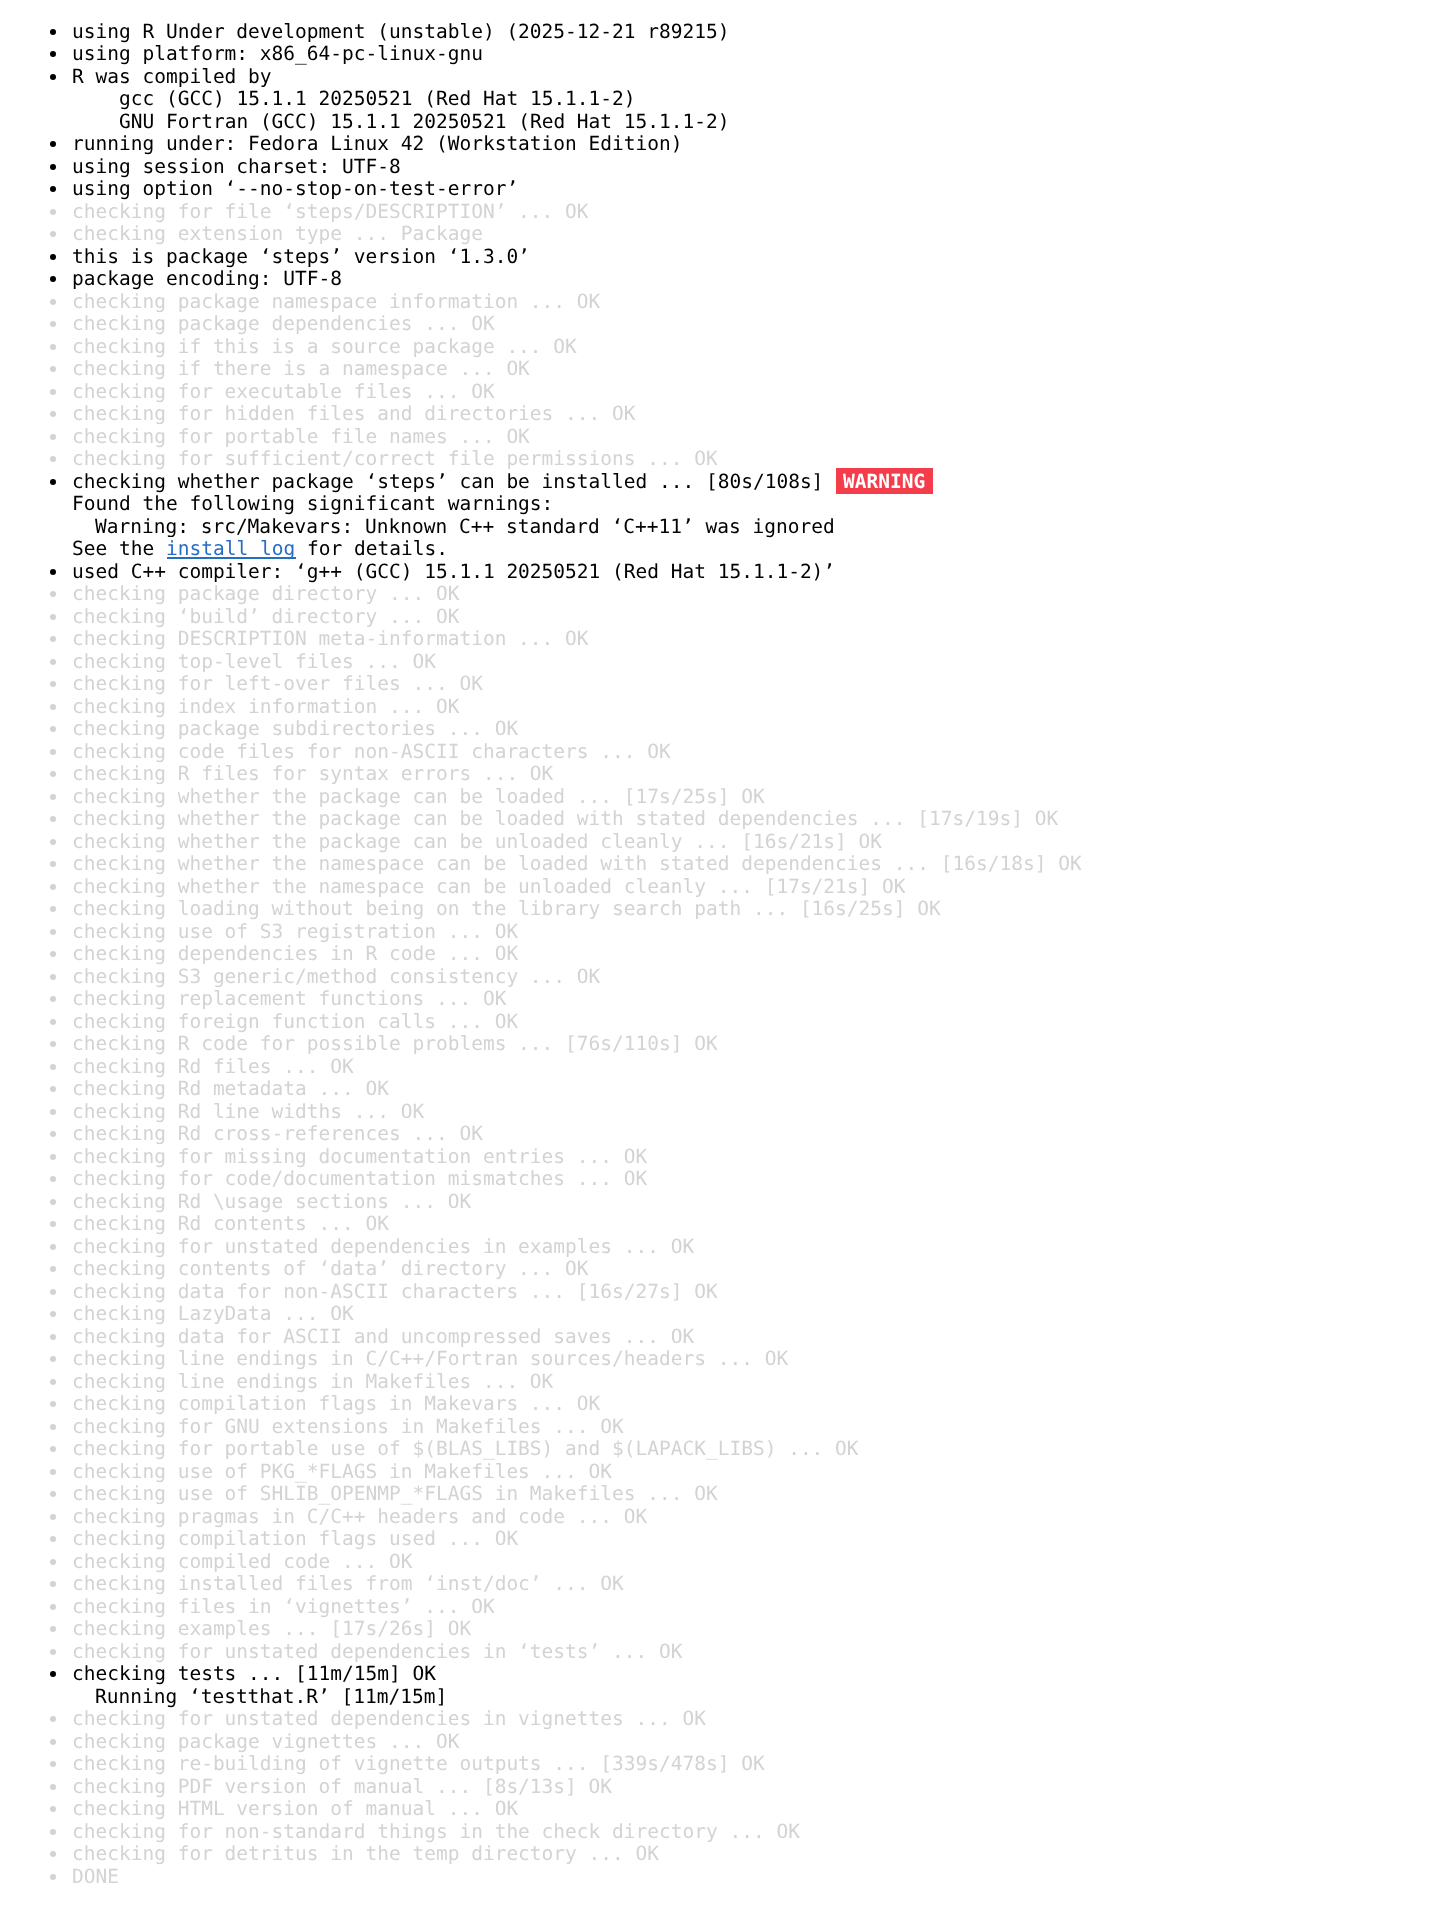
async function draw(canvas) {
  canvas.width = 1442
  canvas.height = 1908
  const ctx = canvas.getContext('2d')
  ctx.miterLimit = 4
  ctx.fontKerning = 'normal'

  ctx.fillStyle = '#fff'
  ctx.fillRect(0, 0, 1442, 1908)
  ctx.fillStyle = '#000'
  ctx.beginPath()
  ctx.arc(53, 32, 3, 0, 2 * Math.PI)
  ctx.fill()
  ctx.font = '19.5px DejaVu Sans Mono'
  ctx.fillText('using R Under development (unstable) (2025-12-21 r89215)', 72, 38)
  ctx.beginPath()
  ctx.arc(53, 54, 3, 0, 2 * Math.PI)
  ctx.fill()
  ctx.fillText('using platform: x86_64-pc-linux-gnu', 72, 60)
  ctx.beginPath()
  ctx.arc(53, 77, 3, 0, 2 * Math.PI)
  ctx.fill()
  ctx.fillText('R was compiled by', 72, 83)
  ctx.fillText('gcc (GCC) 15.1.1 20250521 (Red Hat 15.1.1-2)', 119, 105)
  ctx.fillText('GNU Fortran (GCC) 15.1.1 20250521 (Red Hat 15.1.1-2)', 119, 128)
  ctx.beginPath()
  ctx.arc(53, 144, 3, 0, 2 * Math.PI)
  ctx.fill()
  ctx.fillText('running under: Fedora Linux 42 (Workstation Edition)', 72, 150)
  ctx.beginPath()
  ctx.arc(53, 167, 3, 0, 2 * Math.PI)
  ctx.fill()
  ctx.fillText('using session charset: UTF-8', 72, 173)
  ctx.beginPath()
  ctx.arc(53, 189, 3, 0, 2 * Math.PI)
  ctx.fill()
  ctx.fillText('using option ‘--no-stop-on-test-error’', 72, 195)
  ctx.fillStyle = '#d3d3d3'
  ctx.beginPath()
  ctx.arc(53, 212, 3, 0, 2 * Math.PI)
  ctx.fill()
  ctx.fillText('checking for file ‘steps/DESCRIPTION’ ... OK', 72, 218)
  ctx.beginPath()
  ctx.arc(53, 234, 3, 0, 2 * Math.PI)
  ctx.fill()
  ctx.fillText('checking extension type ... Package', 72, 240)
  ctx.fillStyle = '#000'
  ctx.beginPath()
  ctx.arc(53, 257, 3, 0, 2 * Math.PI)
  ctx.fill()
  ctx.fillText('this is package ‘steps’ version ‘1.3.0’', 72, 263)
  ctx.beginPath()
  ctx.arc(53, 279, 3, 0, 2 * Math.PI)
  ctx.fill()
  ctx.fillText('package encoding: UTF-8', 72, 285)
  ctx.fillStyle = '#d3d3d3'
  ctx.beginPath()
  ctx.arc(53, 302, 3, 0, 2 * Math.PI)
  ctx.fill()
  ctx.fillText('checking package namespace information ... OK', 72, 308)
  ctx.beginPath()
  ctx.arc(53, 324, 3, 0, 2 * Math.PI)
  ctx.fill()
  ctx.fillText('checking package dependencies ... OK', 72, 330)
  ctx.beginPath()
  ctx.arc(53, 347, 3, 0, 2 * Math.PI)
  ctx.fill()
  ctx.fillText('checking if this is a source package ... OK', 72, 353)
  ctx.beginPath()
  ctx.arc(53, 369, 3, 0, 2 * Math.PI)
  ctx.fill()
  ctx.fillText('checking if there is a namespace ... OK', 72, 375)
  ctx.beginPath()
  ctx.arc(53, 392, 3, 0, 2 * Math.PI)
  ctx.fill()
  ctx.fillText('checking for executable files ... OK', 72, 398)
  ctx.beginPath()
  ctx.arc(53, 414, 3, 0, 2 * Math.PI)
  ctx.fill()
  ctx.fillText('checking for hidden files and directories ... OK', 72, 420)
  ctx.beginPath()
  ctx.arc(53, 437, 3, 0, 2 * Math.PI)
  ctx.fill()
  ctx.fillText('checking for portable file names ... OK', 72, 443)
  ctx.beginPath()
  ctx.arc(53, 459, 3, 0, 2 * Math.PI)
  ctx.fill()
  ctx.fillText('checking for sufficient/correct file permissions ... OK', 72, 465)
  ctx.fillStyle = '#000'
  ctx.beginPath()
  ctx.arc(53, 482, 3, 0, 2 * Math.PI)
  ctx.fill()
  ctx.fillText('checking whether package ‘steps’ can be installed ... [80s/108s]', 72, 488)
  ctx.fillStyle = '#f43c4b'
  ctx.fillRect(836, 468, 97, 26)
  ctx.font = 'bold 19.5px DejaVu Sans Mono'
  ctx.fillStyle = '#fff'
  ctx.fillText('WARNING', 843, 488)
  ctx.font = '19.5px DejaVu Sans Mono'
  ctx.fillStyle = '#000'
  ctx.fillText('Found the following significant warnings:', 72, 510)
  ctx.fillText('Warning: src/Makevars: Unknown C++ standard ‘C++11’ was ignored', 95, 533)
  ctx.fillText('See the', 72, 555)
  ctx.fillStyle = '#276dc3'
  ctx.fillRect(167, 557, 129, 2)
  ctx.fillText('install log', 166, 555)
  ctx.fillStyle = '#fff'
  ctx.fillRect(169, 537, 4, 1)
  ctx.fillStyle = '#000'
  ctx.fillText('for details.', 307, 555)
  ctx.beginPath()
  ctx.arc(53, 572, 3, 0, 2 * Math.PI)
  ctx.fill()
  ctx.fillText('used C++ compiler: ‘g++ (GCC) 15.1.1 20250521 (Red Hat 15.1.1-2)’', 72, 578)
  ctx.fillStyle = '#d3d3d3'
  ctx.beginPath()
  ctx.arc(53, 594, 3, 0, 2 * Math.PI)
  ctx.fill()
  ctx.fillText('checking package directory ... OK', 72, 600)
  ctx.beginPath()
  ctx.arc(53, 617, 3, 0, 2 * Math.PI)
  ctx.fill()
  ctx.fillText('checking ‘build’ directory ... OK', 72, 623)
  ctx.beginPath()
  ctx.arc(53, 639, 3, 0, 2 * Math.PI)
  ctx.fill()
  ctx.fillText('checking DESCRIPTION meta-information ... OK', 72, 645)
  ctx.beginPath()
  ctx.arc(53, 662, 3, 0, 2 * Math.PI)
  ctx.fill()
  ctx.fillText('checking top-level files ... OK', 72, 668)
  ctx.beginPath()
  ctx.arc(53, 684, 3, 0, 2 * Math.PI)
  ctx.fill()
  ctx.fillText('checking for left-over files ... OK', 72, 690)
  ctx.beginPath()
  ctx.arc(53, 707, 3, 0, 2 * Math.PI)
  ctx.fill()
  ctx.fillText('checking index information ... OK', 72, 713)
  ctx.beginPath()
  ctx.arc(53, 729, 3, 0, 2 * Math.PI)
  ctx.fill()
  ctx.fillText('checking package subdirectories ... OK', 72, 735)
  ctx.beginPath()
  ctx.arc(53, 752, 3, 0, 2 * Math.PI)
  ctx.fill()
  ctx.fillText('checking code files for non-ASCII characters ... OK', 72, 758)
  ctx.beginPath()
  ctx.arc(53, 774, 3, 0, 2 * Math.PI)
  ctx.fill()
  ctx.fillText('checking R files for syntax errors ... OK', 72, 780)
  ctx.beginPath()
  ctx.arc(53, 797, 3, 0, 2 * Math.PI)
  ctx.fill()
  ctx.fillText('checking whether the package can be loaded ... [17s/25s] OK', 72, 803)
  ctx.beginPath()
  ctx.arc(53, 819, 3, 0, 2 * Math.PI)
  ctx.fill()
  ctx.fillText('checking whether the package can be loaded with stated dependencies ... [17s/19s] OK', 72, 825)
  ctx.beginPath()
  ctx.arc(53, 842, 3, 0, 2 * Math.PI)
  ctx.fill()
  ctx.fillText('checking whether the package can be unloaded cleanly ... [16s/21s] OK', 72, 848)
  ctx.beginPath()
  ctx.arc(53, 864, 3, 0, 2 * Math.PI)
  ctx.fill()
  ctx.fillText('checking whether the namespace can be loaded with stated dependencies ... [16s/18s] OK', 72, 870)
  ctx.beginPath()
  ctx.arc(53, 887, 3, 0, 2 * Math.PI)
  ctx.fill()
  ctx.fillText('checking whether the namespace can be unloaded cleanly ... [17s/21s] OK', 72, 893)
  ctx.beginPath()
  ctx.arc(53, 909, 3, 0, 2 * Math.PI)
  ctx.fill()
  ctx.fillText('checking loading without being on the library search path ... [16s/25s] OK', 72, 915)
  ctx.beginPath()
  ctx.arc(53, 932, 3, 0, 2 * Math.PI)
  ctx.fill()
  ctx.fillText('checking use of S3 registration ... OK', 72, 938)
  ctx.beginPath()
  ctx.arc(53, 954, 3, 0, 2 * Math.PI)
  ctx.fill()
  ctx.fillText('checking dependencies in R code ... OK', 72, 960)
  ctx.beginPath()
  ctx.arc(53, 977, 3, 0, 2 * Math.PI)
  ctx.fill()
  ctx.fillText('checking S3 generic/method consistency ... OK', 72, 983)
  ctx.beginPath()
  ctx.arc(53, 999, 3, 0, 2 * Math.PI)
  ctx.fill()
  ctx.fillText('checking replacement functions ... OK', 72, 1005)
  ctx.beginPath()
  ctx.arc(53, 1022, 3, 0, 2 * Math.PI)
  ctx.fill()
  ctx.fillText('checking foreign function calls ... OK', 72, 1028)
  ctx.beginPath()
  ctx.arc(53, 1044, 3, 0, 2 * Math.PI)
  ctx.fill()
  ctx.fillText('checking R code for possible problems ... [76s/110s] OK', 72, 1050)
  ctx.beginPath()
  ctx.arc(53, 1067, 3, 0, 2 * Math.PI)
  ctx.fill()
  ctx.fillText('checking Rd files ... OK', 72, 1073)
  ctx.beginPath()
  ctx.arc(53, 1089, 3, 0, 2 * Math.PI)
  ctx.fill()
  ctx.fillText('checking Rd metadata ... OK', 72, 1095)
  ctx.beginPath()
  ctx.arc(53, 1112, 3, 0, 2 * Math.PI)
  ctx.fill()
  ctx.fillText('checking Rd line widths ... OK', 72, 1118)
  ctx.beginPath()
  ctx.arc(53, 1134, 3, 0, 2 * Math.PI)
  ctx.fill()
  ctx.fillText('checking Rd cross-references ... OK', 72, 1140)
  ctx.beginPath()
  ctx.arc(53, 1157, 3, 0, 2 * Math.PI)
  ctx.fill()
  ctx.fillText('checking for missing documentation entries ... OK', 72, 1163)
  ctx.beginPath()
  ctx.arc(53, 1179, 3, 0, 2 * Math.PI)
  ctx.fill()
  ctx.fillText('checking for code/documentation mismatches ... OK', 72, 1185)
  ctx.beginPath()
  ctx.arc(53, 1202, 3, 0, 2 * Math.PI)
  ctx.fill()
  ctx.fillText('checking Rd \\usage sections ... OK', 72, 1208)
  ctx.beginPath()
  ctx.arc(53, 1224, 3, 0, 2 * Math.PI)
  ctx.fill()
  ctx.fillText('checking Rd contents ... OK', 72, 1230)
  ctx.beginPath()
  ctx.arc(53, 1247, 3, 0, 2 * Math.PI)
  ctx.fill()
  ctx.fillText('checking for unstated dependencies in examples ... OK', 72, 1253)
  ctx.beginPath()
  ctx.arc(53, 1269, 3, 0, 2 * Math.PI)
  ctx.fill()
  ctx.fillText('checking contents of ‘data’ directory ... OK', 72, 1275)
  ctx.beginPath()
  ctx.arc(53, 1292, 3, 0, 2 * Math.PI)
  ctx.fill()
  ctx.fillText('checking data for non-ASCII characters ... [16s/27s] OK', 72, 1298)
  ctx.beginPath()
  ctx.arc(53, 1314, 3, 0, 2 * Math.PI)
  ctx.fill()
  ctx.fillText('checking LazyData ... OK', 72, 1320)
  ctx.beginPath()
  ctx.arc(53, 1337, 3, 0, 2 * Math.PI)
  ctx.fill()
  ctx.fillText('checking data for ASCII and uncompressed saves ... OK', 72, 1343)
  ctx.beginPath()
  ctx.arc(53, 1359, 3, 0, 2 * Math.PI)
  ctx.fill()
  ctx.fillText('checking line endings in C/C++/Fortran sources/headers ... OK', 72, 1365)
  ctx.beginPath()
  ctx.arc(53, 1382, 3, 0, 2 * Math.PI)
  ctx.fill()
  ctx.fillText('checking line endings in Makefiles ... OK', 72, 1388)
  ctx.beginPath()
  ctx.arc(53, 1404, 3, 0, 2 * Math.PI)
  ctx.fill()
  ctx.fillText('checking compilation flags in Makevars ... OK', 72, 1410)
  ctx.beginPath()
  ctx.arc(53, 1427, 3, 0, 2 * Math.PI)
  ctx.fill()
  ctx.fillText('checking for GNU extensions in Makefiles ... OK', 72, 1433)
  ctx.beginPath()
  ctx.arc(53, 1449, 3, 0, 2 * Math.PI)
  ctx.fill()
  ctx.fillText('checking for portable use of $(BLAS_LIBS) and $(LAPACK_LIBS) ... OK', 72, 1455)
  ctx.beginPath()
  ctx.arc(53, 1472, 3, 0, 2 * Math.PI)
  ctx.fill()
  ctx.fillText('checking use of PKG_*FLAGS in Makefiles ... OK', 72, 1478)
  ctx.beginPath()
  ctx.arc(53, 1494, 3, 0, 2 * Math.PI)
  ctx.fill()
  ctx.fillText('checking use of SHLIB_OPENMP_*FLAGS in Makefiles ... OK', 72, 1500)
  ctx.beginPath()
  ctx.arc(53, 1517, 3, 0, 2 * Math.PI)
  ctx.fill()
  ctx.fillText('checking pragmas in C/C++ headers and code ... OK', 72, 1523)
  ctx.beginPath()
  ctx.arc(53, 1539, 3, 0, 2 * Math.PI)
  ctx.fill()
  ctx.fillText('checking compilation flags used ... OK', 72, 1545)
  ctx.beginPath()
  ctx.arc(53, 1562, 3, 0, 2 * Math.PI)
  ctx.fill()
  ctx.fillText('checking compiled code ... OK', 72, 1568)
  ctx.beginPath()
  ctx.arc(53, 1584, 3, 0, 2 * Math.PI)
  ctx.fill()
  ctx.fillText('checking installed files from ‘inst/doc’ ... OK', 72, 1590)
  ctx.beginPath()
  ctx.arc(53, 1607, 3, 0, 2 * Math.PI)
  ctx.fill()
  ctx.fillText('checking files in ‘vignettes’ ... OK', 72, 1613)
  ctx.beginPath()
  ctx.arc(53, 1629, 3, 0, 2 * Math.PI)
  ctx.fill()
  ctx.fillText('checking examples ... [17s/26s] OK', 72, 1635)
  ctx.beginPath()
  ctx.arc(53, 1652, 3, 0, 2 * Math.PI)
  ctx.fill()
  ctx.fillText('checking for unstated dependencies in ‘tests’ ... OK', 72, 1658)
  ctx.fillStyle = '#000'
  ctx.beginPath()
  ctx.arc(53, 1674, 3, 0, 2 * Math.PI)
  ctx.fill()
  ctx.fillText('checking tests ... [11m/15m] OK', 72, 1680)
  ctx.fillText('Running ‘testthat.R’ [11m/15m]', 95, 1703)
  ctx.fillStyle = '#d3d3d3'
  ctx.beginPath()
  ctx.arc(53, 1719, 3, 0, 2 * Math.PI)
  ctx.fill()
  ctx.fillText('checking for unstated dependencies in vignettes ... OK', 72, 1725)
  ctx.beginPath()
  ctx.arc(53, 1742, 3, 0, 2 * Math.PI)
  ctx.fill()
  ctx.fillText('checking package vignettes ... OK', 72, 1748)
  ctx.beginPath()
  ctx.arc(53, 1764, 3, 0, 2 * Math.PI)
  ctx.fill()
  ctx.fillText('checking re-building of vignette outputs ... [339s/478s] OK', 72, 1770)
  ctx.beginPath()
  ctx.arc(53, 1787, 3, 0, 2 * Math.PI)
  ctx.fill()
  ctx.fillText('checking PDF version of manual ... [8s/13s] OK', 72, 1793)
  ctx.beginPath()
  ctx.arc(53, 1809, 3, 0, 2 * Math.PI)
  ctx.fill()
  ctx.fillText('checking HTML version of manual ... OK', 72, 1815)
  ctx.beginPath()
  ctx.arc(53, 1832, 3, 0, 2 * Math.PI)
  ctx.fill()
  ctx.fillText('checking for non-standard things in the check directory ... OK', 72, 1838)
  ctx.beginPath()
  ctx.arc(53, 1854, 3, 0, 2 * Math.PI)
  ctx.fill()
  ctx.fillText('checking for detritus in the temp directory ... OK', 72, 1860)
  ctx.beginPath()
  ctx.arc(53, 1877, 3, 0, 2 * Math.PI)
  ctx.fill()
  ctx.fillText('DONE', 72, 1883)
}

draw(document.querySelector('canvas'))
